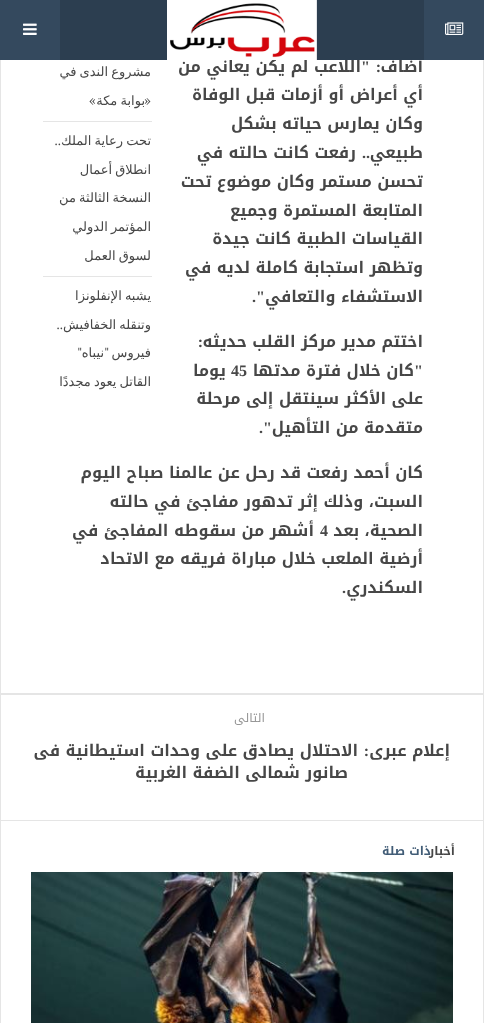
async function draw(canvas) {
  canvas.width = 484
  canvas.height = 1023
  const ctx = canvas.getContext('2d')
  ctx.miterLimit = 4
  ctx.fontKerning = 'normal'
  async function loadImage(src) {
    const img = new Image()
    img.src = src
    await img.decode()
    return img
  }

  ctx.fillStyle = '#fff'
  ctx.fillRect(0, 0, 484, 1023)
  ctx.strokeStyle = '#e5e5e5'
  ctx.strokeRect(0.5, -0.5, 483, 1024)
  ctx.direction = 'rtl'
  ctx.font = 'bold 16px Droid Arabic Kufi'
  ctx.fillStyle = '#474747'
  ctx.fillText('أضاف', 423, 72)
  ctx.fillText('اللاعب لم يكن يعاني من', 361, 72)
  ctx.fillStyle = '#2c3e50'
  ctx.fillRect(60, 0, 364, 60)
  ctx.fillStyle = '#34495e'
  ctx.fillRect(424, 0, 60, 60)
  ctx.drawImage(await loadImage('image0.png'), 445, 22, 19, 13)
  ctx.drawImage(await loadImage('image1.png'), 167, 0, 150, 60)
  ctx.fillRect(0, 0, 60, 60)
  ctx.drawImage(await loadImage('image2.png'), 23, 23, 14, 12)
  ctx.font = 'bold 16px Liberation Serif'
  ctx.fillStyle = '#474747'
  ctx.fillText('"', 370, 72)
  ctx.fillText(':', 381, 72)
  ctx.font = 'bold 16px Droid Arabic Kufi'
  ctx.fillText('أي أعراض أو أزمات قبل الوفاة', 423, 100)
  ctx.fillText('وكان يمارس حياته بشكل', 423, 129)
  ctx.fillText('طبيعي', 423, 158)
  ctx.font = 'bold 16px Liberation Serif'
  ctx.fillText('..', 370, 158)
  ctx.font = 'bold 16px Droid Arabic Kufi'
  ctx.fillText('رفعت كانت حالته في', 356, 158)
  ctx.fillText('تحسن مستمر وكان موضوع تحت', 423, 187)
  ctx.fillText('المتابعة المستمرة وجميع', 423, 216)
  ctx.fillText('القياسات الطبية كانت جيدة', 423, 244)
  ctx.fillText('وتظهر استجابة كاملة لديه في', 423, 273)
  ctx.fillText('الاستشفاء والتعافي', 423, 302)
  ctx.font = 'bold 16px Liberation Serif'
  ctx.fillText('".', 265, 302)
  ctx.font = 'bold 16px Droid Arabic Kufi'
  ctx.fillText('اختتم مدير مركز القلب حديثه', 423, 347)
  ctx.font = 'bold 16px Liberation Serif'
  ctx.fillText(':', 203, 347)
  ctx.fillText('"', 423, 376)
  ctx.font = 'bold 16px Droid Arabic Kufi'
  ctx.fillText('كان خلال فترة مدتها', 414, 376)
  ctx.direction = 'ltr'
  ctx.font = 'bold 16px Liberation Serif'
  ctx.fillText('45', 231, 376)
  ctx.direction = 'rtl'
  ctx.font = 'bold 16px Droid Arabic Kufi'
  ctx.fillText('يوما', 226, 376)
  ctx.fillText('على الأكثر سينتقل إلى مرحلة', 423, 404)
  ctx.fillText('متقدمة من التأهيل', 423, 433)
  ctx.font = 'bold 16px Liberation Serif'
  ctx.fillText('".', 272, 433)
  ctx.font = 'bold 16px Droid Arabic Kufi'
  ctx.fillText('كان أحمد رفعت قد رحل عن عالمنا صباح اليوم', 423, 478)
  ctx.fillText('السبت، وذلك إثر تدهور مفاجئ في حالته', 423, 507)
  ctx.fillText('الصحية، بعد', 423, 536)
  ctx.direction = 'ltr'
  ctx.font = 'bold 16px Liberation Serif'
  ctx.fillText('4', 320, 536)
  ctx.direction = 'rtl'
  ctx.font = 'bold 16px Droid Arabic Kufi'
  ctx.fillText('أشهر من سقوطه المفاجئ في', 314, 536)
  ctx.fillText('أرضية الملعب خلال مباراة فريقه مع الاتحاد', 423, 564)
  ctx.fillText('السكندري', 423, 593)
  ctx.font = 'bold 16px Liberation Serif'
  ctx.fillText('.', 346, 593)
  ctx.wordSpacing = '-1px'
  ctx.font = '13px DejaVu Sans'
  ctx.fillText('مشروع الندى في', 151, 76)
  ctx.wordSpacing = '0px'
  ctx.font = '13px Lora'
  ctx.fillText('«', 151, 105)
  ctx.wordSpacing = '-1px'
  ctx.font = '13px DejaVu Sans'
  ctx.fillText('بوابة مكة', 145, 105)
  ctx.wordSpacing = '0px'
  ctx.font = '13px Lora'
  ctx.fillText('»', 96, 105)
  ctx.fillStyle = '#e5e5e5'
  ctx.fillRect(43, 121, 109, 1)
  ctx.wordSpacing = '-1px'
  ctx.font = '13px DejaVu Sans'
  ctx.fillStyle = '#474747'
  ctx.fillText('تحت رعاية الملك', 151, 145)
  ctx.wordSpacing = '0px'
  ctx.font = '13px Lora'
  ctx.fillText('..', 61, 145)
  ctx.wordSpacing = '-1px'
  ctx.font = '13px DejaVu Sans'
  ctx.fillText('انطلاق أعمال', 151, 174)
  ctx.fillText('النسخة الثالثة من', 151, 202)
  ctx.fillText('المؤتمر الدولي', 151, 231)
  ctx.fillText('لسوق العمل', 151, 260)
  ctx.fillStyle = '#e5e5e5'
  ctx.fillRect(43, 276, 109, 1)
  ctx.fillStyle = '#474747'
  ctx.fillText('يشبه الإنفلونزا', 151, 300)
  ctx.fillText('وتنقله الخفافيش', 151, 329)
  ctx.wordSpacing = '0px'
  ctx.font = '13px Lora'
  ctx.fillText('..', 63, 329)
  ctx.font = '13px DejaVu Sans'
  ctx.fillText('فيروس', 151, 357)
  ctx.font = '13px Lora'
  ctx.fillText('"', 109, 357)
  ctx.font = '13px DejaVu Sans'
  ctx.fillText('نيباه', 104, 357)
  ctx.font = '13px Lora'
  ctx.fillText('"', 82, 357)
  ctx.wordSpacing = '-1px'
  ctx.font = '13px DejaVu Sans'
  ctx.fillText('القاتل يعود مجددًا', 151, 386)
  ctx.fillStyle = '#e5e5e5'
  ctx.fillRect(1, 693, 482, 2)
  ctx.fillRect(1, 820, 482, 1)
  ctx.letterSpacing = '1.25px'
  ctx.wordSpacing = '0px'
  ctx.font = '12px Droid Arabic Kufi'
  ctx.fillStyle = '#979797'
  ctx.fillText('التالى', 265, 722)
  ctx.letterSpacing = '0px'
  ctx.font = 'bold 16px Droid Arabic Kufi'
  ctx.fillStyle = '#474747'
  ctx.fillText('إعلام عبرى', 450, 756)
  ctx.font = 'bold 16px Liberation Serif'
  ctx.fillText(':', 369, 756)
  ctx.font = 'bold 16px Droid Arabic Kufi'
  ctx.fillText('الاحتلال يصادق على وحدات استيطانية فى', 358, 756)
  ctx.fillText('صانور شمالى الضفة الغربية', 348, 778)
  ctx.letterSpacing = '1.25px'
  ctx.font = 'bold 12px Droid Arabic Kufi'
  ctx.fillText('أخبار', 455, 855)
  ctx.wordSpacing = '-1px'
  ctx.fillStyle = '#415c76'
  ctx.fillText('ذات صلة', 431, 855)
  ctx.drawImage(await loadImage('image3.png'), 31, 872, 422, 151)
}

draw(document.querySelector('canvas'))
